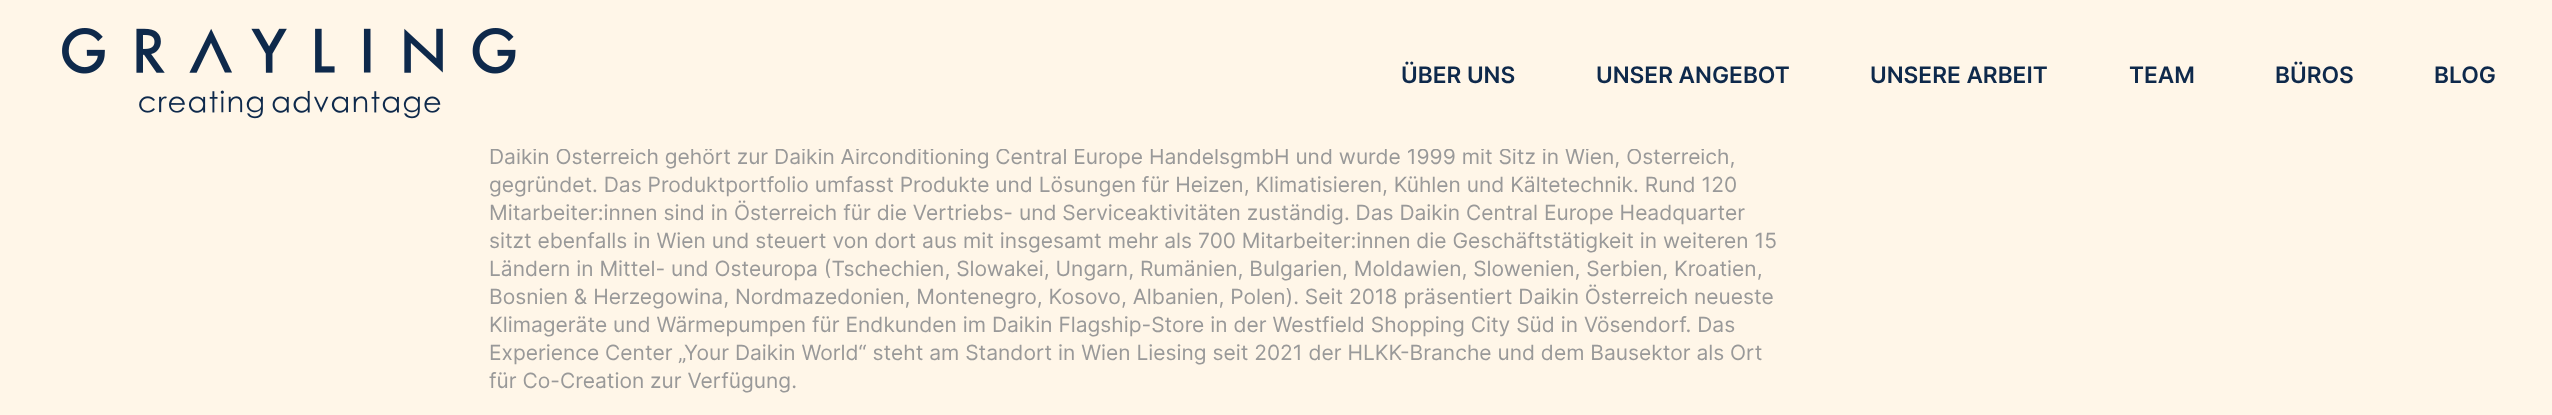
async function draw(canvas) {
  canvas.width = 2552
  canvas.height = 415
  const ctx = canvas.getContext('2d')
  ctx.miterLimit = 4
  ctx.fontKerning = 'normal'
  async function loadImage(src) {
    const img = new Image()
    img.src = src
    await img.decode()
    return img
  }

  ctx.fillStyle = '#fff6e8'
  ctx.fillRect(0, 0, 2552, 415)
  ctx.font = '21px Inter'
  ctx.fillStyle = '#999'
  ctx.fillText('Daikin Österreich gehört zur Daikin Airconditioning Central Europe HandelsgmbH und wurde 1999 mit Sitz in Wien, Österreich,', 489, 164)
  ctx.fillStyle = '#fff6e8'
  ctx.fillRect(491, 144, 1230, 5)
  ctx.drawImage(await loadImage('image0.png'), 62, 28, 454, 91)
  ctx.font = '600 22.75px Inter'
  ctx.fillStyle = '#0e294b'
  ctx.fillText('ÜBER UNS', 1401, 83)
  ctx.fillText('UNSER ANGEBOT', 1596, 83)
  ctx.fillText('UNSERE ARBEIT', 1870, 83)
  ctx.fillText('TEAM', 2129, 83)
  ctx.fillText('BÜROS', 2275, 83)
  ctx.fillText('BLOG', 2434, 83)
  ctx.font = '21px Inter'
  ctx.fillStyle = '#999'
  ctx.fillText('gegründet. Das Produktportfolio umfasst Produkte und Lösungen für Heizen, Klimatisieren, Kühlen und Kältetechnik. Rund 120', 489, 192)
  ctx.fillText('Mitarbeiter:innen sind in Österreich für die Vertriebs- und Serviceaktivitäten zuständig. Das Daikin Central Europe Headquarter', 489, 220)
  ctx.fillText('sitzt ebenfalls in Wien und steuert von dort aus mit insgesamt mehr als 700 Mitarbeiter:innen die Geschäftstätigkeit in weiteren 15', 489, 248)
  ctx.fillText('Ländern in Mittel- und Osteuropa (Tschechien, Slowakei, Ungarn, Rumänien, Bulgarien, Moldawien, Slowenien, Serbien, Kroatien,', 489, 276)
  ctx.fillText('Bosnien & Herzegowina, Nordmazedonien, Montenegro, Kosovo, Albanien, Polen). Seit 2018 präsentiert Daikin Österreich neueste', 489, 304)
  ctx.fillText('Klimageräte und Wärmepumpen für Endkunden im Daikin Flagship-Store in der Westfield Shopping City Süd in Vösendorf. Das', 489, 332)
  ctx.fillText('Experience Center „Your Daikin World“ steht am Standort in Wien Liesing seit 2021 der HLKK-Branche und dem Bausektor als Ort', 489, 360)
  ctx.fillText('für Co-Creation zur Verfügung.', 489, 388)
}

draw(document.querySelector('canvas'))
